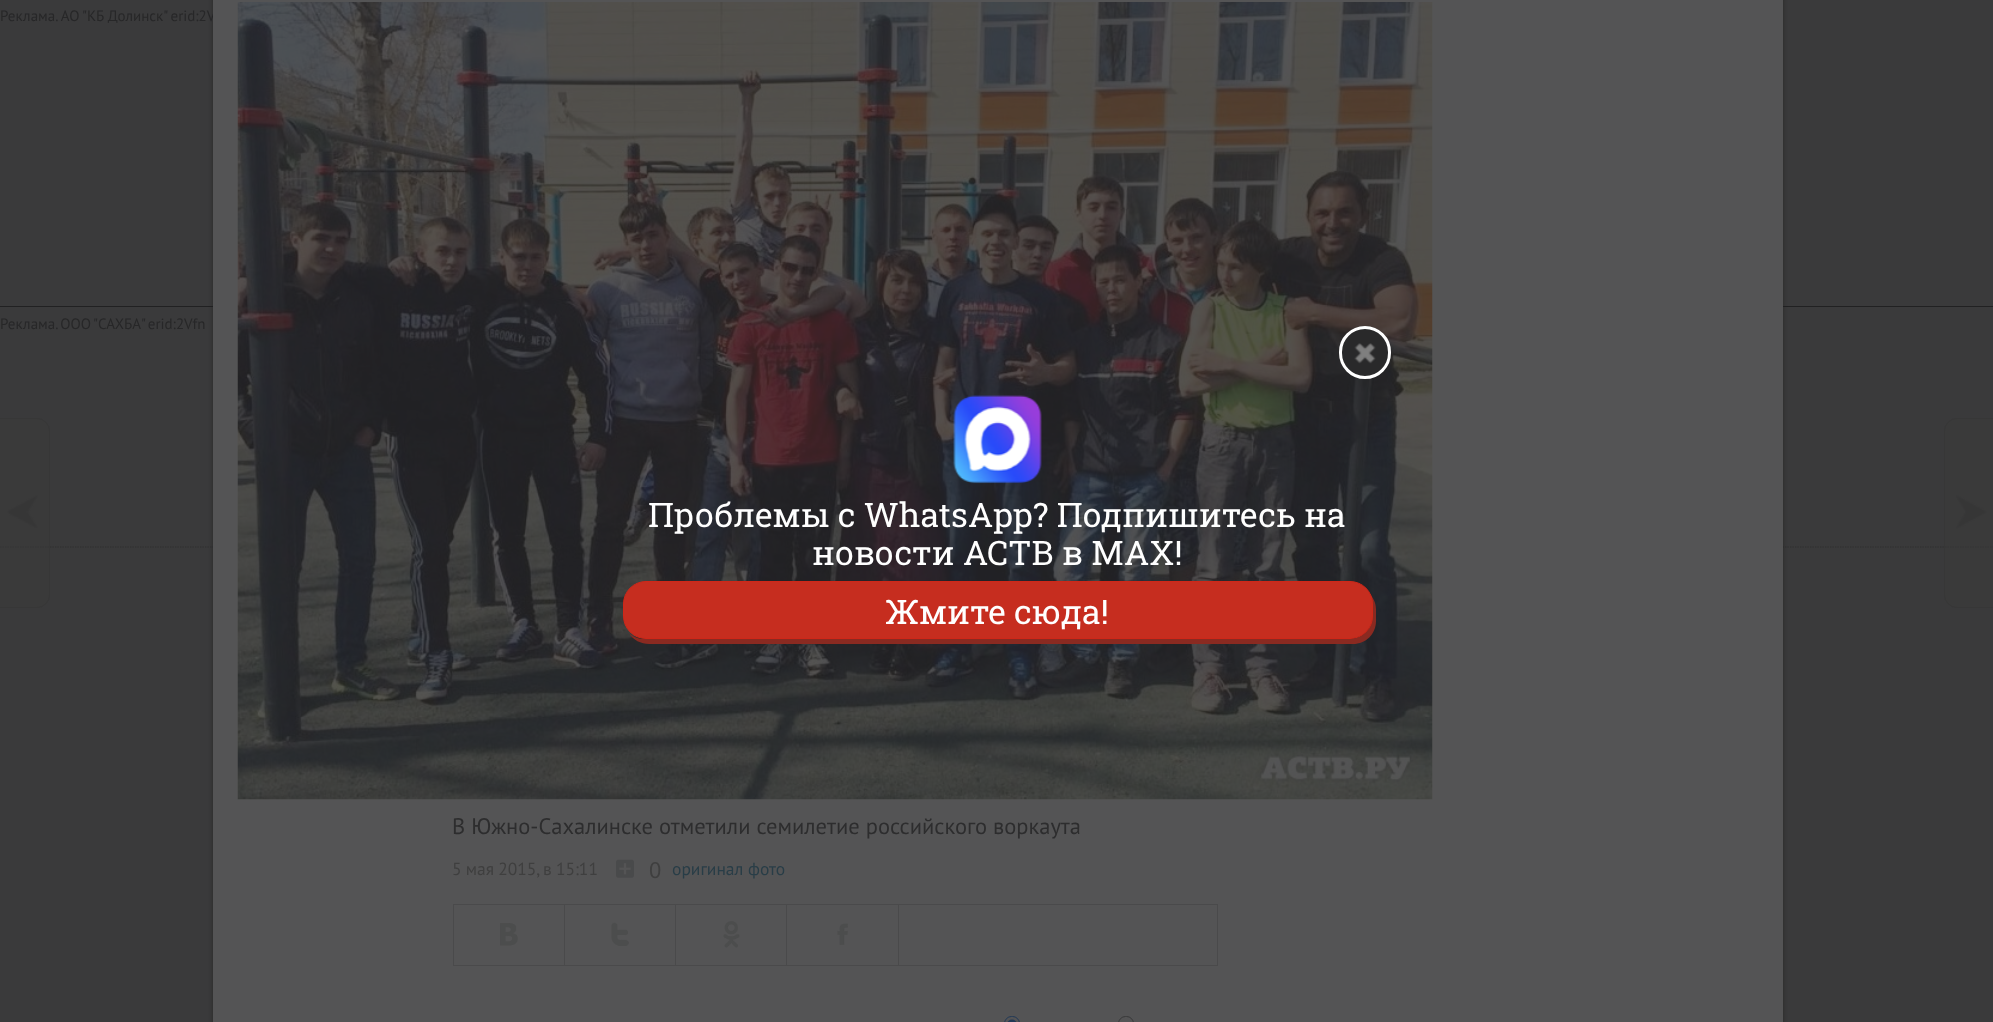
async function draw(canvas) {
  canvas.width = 1993
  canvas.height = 1022
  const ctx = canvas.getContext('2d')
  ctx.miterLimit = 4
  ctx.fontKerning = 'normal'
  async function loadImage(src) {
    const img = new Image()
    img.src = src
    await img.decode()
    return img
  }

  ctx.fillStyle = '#3a3a3b'
  ctx.fillRect(0, 0, 1993, 1022)
  ctx.wordSpacing = '-0.5px'
  ctx.font = '15px PT Sans'
  ctx.fillStyle = '#272728'
  ctx.fillText('Реклама. АО "КБ Долинск" erid:2V', 0, 21)
  ctx.fillStyle = '#212122'
  ctx.fillRect(0, 306, 1993, 1)
  ctx.wordSpacing = '-1px'
  ctx.fillStyle = '#272728'
  ctx.fillText('Реклама. ООО "САХБА" erid:2Vfn', 0, 329)
  ctx.beginPath()
  ctx.moveTo(0, 547)
  ctx.lineTo(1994, 547)
  ctx.strokeStyle = '#2e2e2f'
  ctx.lineWidth = 1.2
  ctx.setLineDash([1.25, 1.25])
  ctx.stroke()
  ctx.fillStyle = '#39393980'
  ctx.beginPath()
  ctx.roundRect(-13.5, 418.5, 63, 189, 12.5)
  ctx.fill()
  ctx.strokeStyle = '#373737'
  ctx.lineWidth = 1
  ctx.setLineDash([])
  ctx.stroke()
  ctx.drawImage(await loadImage('image0.png'), 7, 495, 31, 33)
  ctx.beginPath()
  ctx.roundRect(1944.5, 418.5, 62, 189, 12.5)
  ctx.fill()
  ctx.stroke()
  ctx.drawImage(await loadImage('image1.png'), 1956, 495, 31, 34)
  ctx.fillStyle = '#212122bf'
  ctx.filter = 'blur(2px)'
  ctx.beginPath()
  ctx.rect(213, -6, 1570, 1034)
  ctx.fill()
  ctx.filter = 'none'
  ctx.fillStyle = '#545455'
  ctx.fillRect(213, 0, 1570, 1022)
  ctx.drawImage(await loadImage('image4.png'), 237, 2, 1196, 798)
  ctx.drawImage(await loadImage('image2.png'), 953, 395, 89, 89)
  ctx.wordSpacing = '0px'
  ctx.font = '33.75px Roboto Slab'
  ctx.fillStyle = '#fff'
  ctx.fillText('Проблемы с WhatsApp? Подпишитесь на', 648, 527)
  ctx.fillText('новости АСТВ в MAX!', 812, 565)
  ctx.fillStyle = '#29292a'
  ctx.beginPath()
  ctx.roundRect(1339, 326, 52, 53, 26)
  ctx.fill()
  ctx.drawImage(await loadImage('image3.png'), 1354, 343, 22, 21)
  ctx.beginPath()
  ctx.roundRect(1340.5, 327.5, 49, 50, 24.5)
  ctx.strokeStyle = '#fff'
  ctx.lineWidth = 3
  ctx.stroke()
  ctx.fillStyle = '#8a2a21'
  ctx.beginPath()
  ctx.moveTo(629, 633)
  ctx.bezierCurveTo(633, 640, 641, 644, 649, 644)
  ctx.lineTo(1353, 644)
  ctx.bezierCurveTo(1366, 644, 1376, 634, 1376, 621)
  ctx.lineTo(1376, 609)
  ctx.bezierCurveTo(1376, 603, 1373, 597, 1369, 593)
  ctx.bezierCurveTo(1371, 596, 1372, 600, 1372, 604)
  ctx.lineTo(1372, 617)
  ctx.bezierCurveTo(1372, 629, 1362, 639, 1350, 639)
  ctx.lineTo(645, 639)
  ctx.bezierCurveTo(639, 639, 633, 637, 629, 633)
  ctx.closePath()
  ctx.fill()
  ctx.fillStyle = '#c62d1f'
  ctx.beginPath()
  ctx.roundRect(623.5, 581.5, 749, 57, 22.5)
  ctx.fill()
  ctx.strokeStyle = '#d02718'
  ctx.lineWidth = 1
  ctx.stroke()
  ctx.fillStyle = '#fff'
  ctx.fillText('Жмите сюда!', 885, 624)
  ctx.font = '22.5px PT Sans'
  ctx.fillStyle = '#2d2d2e'
  ctx.fillText('В Южно-Сахалинске отметили семилетие российского воркаута', 452, 834)
  ctx.wordSpacing = '-0.5px'
  ctx.font = '17.5px PT Sans'
  ctx.fillStyle = '#3f3f3f'
  ctx.fillText('5 мая 2015, в 15:11', 452, 875)
  ctx.drawImage(await loadImage('image5.png'), 616, 859, 18, 19)
  ctx.wordSpacing = '0px'
  ctx.font = '22.5px PT Sans'
  ctx.fillText('0', 649, 878)
  ctx.font = '17.5px PT Sans'
  ctx.fillStyle = '#283d47'
  ctx.fillText('оригинал фото', 672, 875)
  ctx.strokeStyle = '#4a4a4b'
  ctx.strokeRect(453.5, 904.5, 764, 61)
  ctx.fillStyle = '#4a4a4b'
  ctx.fillRect(564, 905, 1, 60)
  ctx.drawImage(await loadImage('image6.png'), 500, 923, 18, 23)
  ctx.fillRect(675, 905, 1, 60)
  ctx.drawImage(await loadImage('image7.png'), 611, 922, 18, 24)
  ctx.fillRect(786, 905, 1, 60)
  ctx.drawImage(await loadImage('image8.png'), 723, 921, 17, 27)
  ctx.fillRect(898, 905, 1, 60)
  ctx.drawImage(await loadImage('image9.png'), 837, 923, 11, 22)
  ctx.beginPath()
  ctx.roundRect(1004.5, 1016.5, 15, 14, 7.5)
  ctx.strokeStyle = '#213855'
  ctx.stroke()
  ctx.fillStyle = '#213855'
  ctx.beginPath()
  ctx.arc(1012, 1024.5, 5, 0, 2 * Math.PI)
  ctx.fill()
  ctx.beginPath()
  ctx.roundRect(1118.5, 1016.5, 15, 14, 7.5)
  ctx.strokeStyle = '#383839'
  ctx.stroke()
}

draw(document.querySelector('canvas'))
